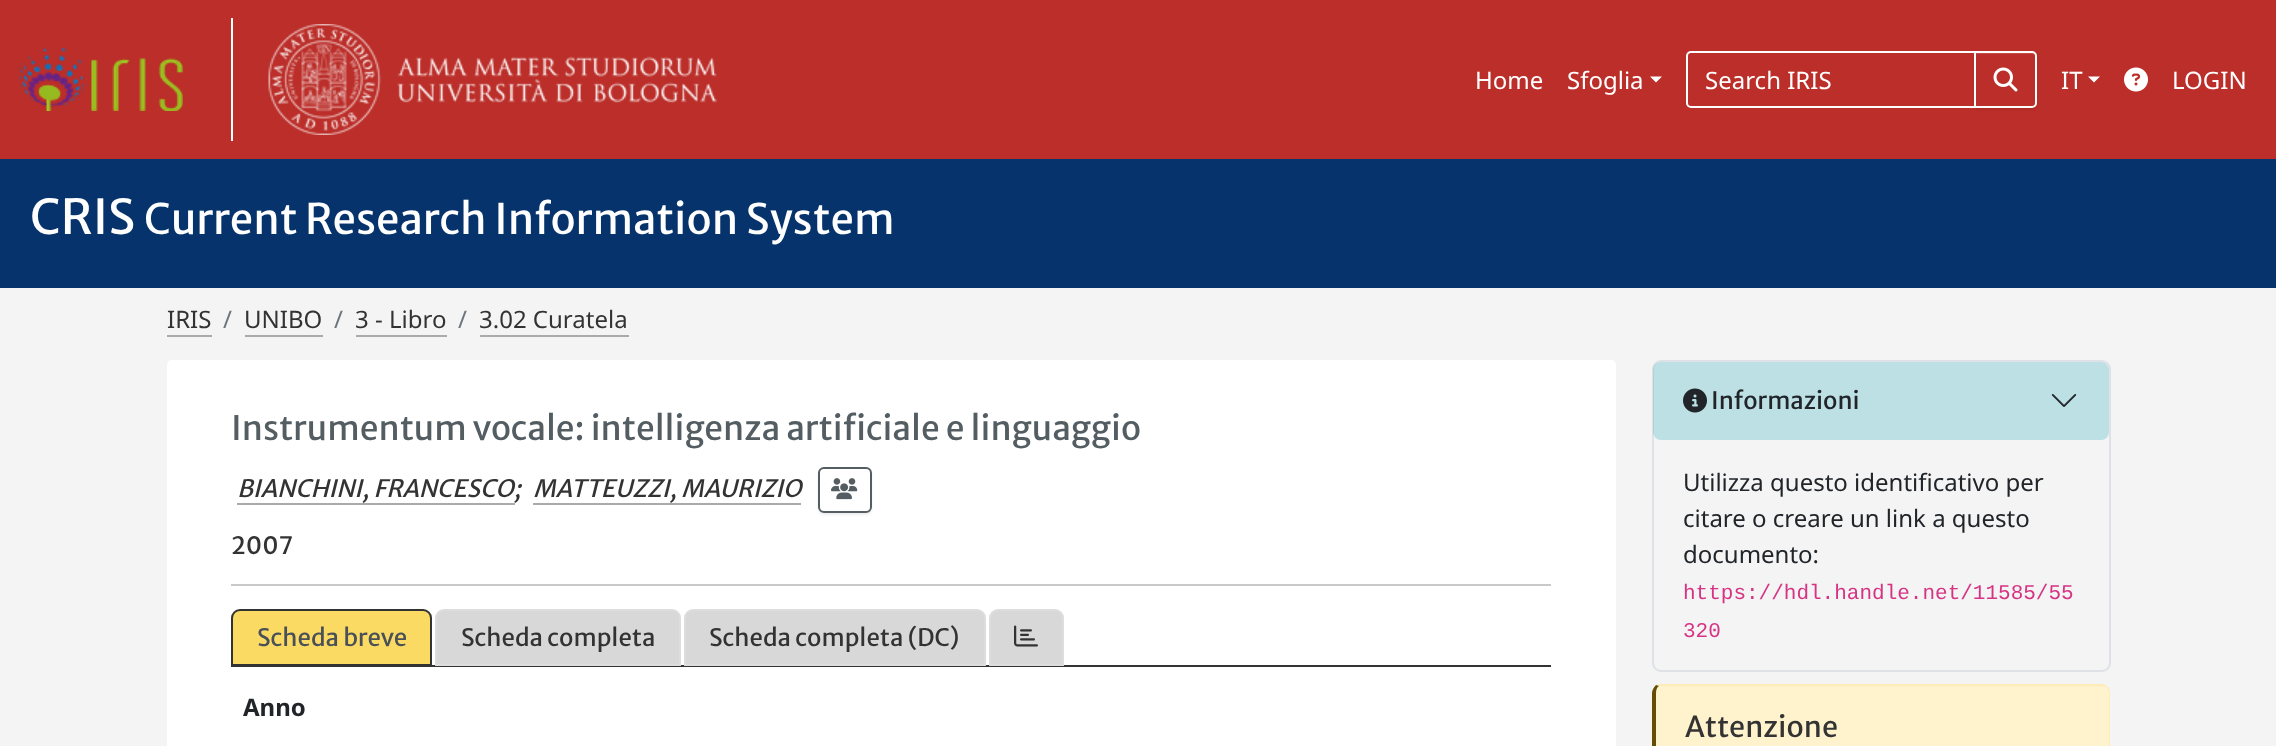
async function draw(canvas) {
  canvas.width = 2276
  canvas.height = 746
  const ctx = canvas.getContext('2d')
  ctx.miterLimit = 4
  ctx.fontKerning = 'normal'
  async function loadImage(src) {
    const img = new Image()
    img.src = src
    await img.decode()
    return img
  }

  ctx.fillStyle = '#f4f4f4'
  ctx.fillRect(0, 0, 2276, 746)
  ctx.fillStyle = '#bb2e29'
  ctx.fillRect(0, 0, 2276, 159)
  ctx.drawImage(await loadImage('image0.png'), 18, 48, 165, 63)
  ctx.fillStyle = '#fff'
  ctx.fillRect(231, 18, 2, 123)
  ctx.drawImage(await loadImage('image1.png'), 268, 24, 449, 111)
  ctx.font = '24px Noto Sans'
  ctx.fillText('Home', 1475, 89)
  ctx.fillText('Sfoglia', 1567, 89)
  ctx.beginPath()
  ctx.moveTo(1650, 76.5)
  ctx.lineTo(1662, 76.5)
  ctx.lineTo(1656, 82.5)
  ctx.closePath()
  ctx.fill()
  ctx.beginPath()
  ctx.roundRect(1687, 52, 288, 55, [4, 0, 0, 4])
  ctx.strokeStyle = '#fff'
  ctx.lineWidth = 2
  ctx.stroke()
  ctx.fillText('Search IRIS', 1705, 89)
  ctx.fillStyle = '#00000012'
  ctx.filter = 'blur(1px)'
  ctx.beginPath()
  ctx.roundRect(1974, 53, 63, 57, 5)
  ctx.fill()
  ctx.filter = 'none'
  ctx.fillStyle = '#bb2e29'
  ctx.beginPath()
  ctx.roundRect(1974, 51, 63, 57, [0, 5, 5, 0])
  ctx.fill()
  ctx.fillStyle = '#c54d49'
  ctx.beginPath()
  ctx.moveTo(1976, 54)
  ctx.lineTo(2032, 54)
  ctx.bezierCurveTo(2034, 54, 2036, 55, 2036, 57)
  ctx.lineTo(2036, 56)
  ctx.bezierCurveTo(2036, 54, 2035, 53, 2033, 53)
  ctx.lineTo(1976, 53)
  ctx.closePath()
  ctx.fill()
  ctx.beginPath()
  ctx.roundRect(1975, 52, 61, 55, [0, 4, 4, 0])
  ctx.stroke()
  ctx.drawImage(await loadImage('image2.png'), 1993, 67, 25, 25)
  ctx.fillStyle = '#fff'
  ctx.fillText('IT', 2061, 89)
  ctx.beginPath()
  ctx.moveTo(2088, 76.5)
  ctx.lineTo(2100, 76.5)
  ctx.lineTo(2094, 82.5)
  ctx.closePath()
  ctx.fill()
  ctx.drawImage(await loadImage('image3.png'), 2124, 67, 24, 25)
  ctx.fillText('LOGIN', 2172, 89)
  ctx.fillStyle = '#06336b'
  ctx.fillRect(0, 159, 2276, 129)
  ctx.font = '48px Merriweather Sans'
  ctx.fillStyle = '#fff'
  ctx.fillText('CRIS', 30, 234)
  ctx.font = '42px Merriweather Sans'
  ctx.fillText('Current Research Information System', 144, 234)
  ctx.font = '24px Noto Sans'
  ctx.fillStyle = '#333'
  ctx.fillText('IRIS', 167, 328)
  ctx.fillStyle = '#aaa'
  ctx.fillRect(167, 335, 45, 2)
  ctx.fillStyle = '#6c757d'
  ctx.fillText('/', 223, 328)
  ctx.fillStyle = '#333'
  ctx.fillText('UNIBO', 244, 328)
  ctx.fillStyle = '#aaa'
  ctx.fillRect(245, 335, 78, 2)
  ctx.fillStyle = '#6c757d'
  ctx.fillText('/', 334, 328)
  ctx.fillStyle = '#333'
  ctx.fillText('3 - Libro', 355, 328)
  ctx.fillStyle = '#aaa'
  ctx.fillRect(356, 335, 91, 2)
  ctx.fillStyle = '#6c757d'
  ctx.fillText('/', 458, 328)
  ctx.fillStyle = '#333'
  ctx.fillText('3.02 Curatela', 479, 328)
  ctx.fillStyle = '#aaa'
  ctx.fillRect(480, 335, 149, 2)
  ctx.fillStyle = '#fff'
  ctx.beginPath()
  ctx.roundRect(167, 360, 1449, 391, 5)
  ctx.fill()
  ctx.font = '33.6px Merriweather Sans'
  ctx.fillStyle = '#545d62'
  ctx.fillText('Instrumentum vocale: intelligenza artificiale e linguaggio', 231, 440)
  ctx.font = 'italic 24px Merriweather Sans'
  ctx.fillStyle = '#333'
  ctx.fillText('BIANCHINI, FRANCESCO;', 237, 497)
  ctx.fillStyle = '#aaa'
  ctx.fillRect(237, 503, 278, 2)
  ctx.fillStyle = '#333'
  ctx.fillText('MATTEUZZI, MAURIZIO', 533, 497)
  ctx.fillStyle = '#aaa'
  ctx.fillRect(533, 503, 268, 2)
  ctx.save()
  ctx.beginPath()
  ctx.moveTo(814, 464)
  ctx.lineTo(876, 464)
  ctx.lineTo(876, 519)
  ctx.lineTo(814, 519)
  ctx.closePath()
  ctx.moveTo(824, 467)
  ctx.lineTo(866, 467)
  ctx.bezierCurveTo(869.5, 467, 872, 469.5, 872, 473)
  ctx.lineTo(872, 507)
  ctx.bezierCurveTo(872, 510.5, 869.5, 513, 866, 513)
  ctx.lineTo(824, 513)
  ctx.bezierCurveTo(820.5, 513, 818, 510.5, 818, 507)
  ctx.lineTo(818, 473)
  ctx.bezierCurveTo(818, 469.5, 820.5, 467, 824, 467)
  ctx.closePath()
  ctx.clip('evenodd')
  ctx.fillStyle = '#00000012'
  ctx.filter = 'blur(1px)'
  ctx.beginPath()
  ctx.roundRect(818, 468, 54, 47, 6)
  ctx.fill()
  ctx.filter = 'none'
  ctx.restore()
  ctx.beginPath()
  ctx.roundRect(819, 468, 52, 44, 5)
  ctx.strokeStyle = '#545d62'
  ctx.stroke()
  ctx.drawImage(await loadImage('image4.png'), 831, 478, 27, 22)
  ctx.font = '24px Merriweather Sans'
  ctx.fillStyle = '#333'
  ctx.fillText('2007', 231, 554)
  ctx.fillStyle = '#c8c9ca'
  ctx.fillRect(231, 584, 1320, 2)
  ctx.fillStyle = '#333'
  ctx.fillRect(231, 665, 1320, 2)
  ctx.fillStyle = '#fbda64'
  ctx.beginPath()
  ctx.roundRect(232, 610, 199, 55, [8, 8, 0, 0])
  ctx.fill()
  ctx.strokeStyle = '#333'
  ctx.stroke()
  ctx.fillStyle = '#495057'
  ctx.fillText('Scheda breve', 257, 646)
  ctx.fillStyle = '#d8d8d8'
  ctx.beginPath()
  ctx.roundRect(436, 610, 244, 55, [8, 8, 0, 0])
  ctx.fill()
  ctx.strokeStyle = '#ddd'
  ctx.stroke()
  ctx.fillStyle = '#333'
  ctx.fillText('Scheda completa', 461, 646)
  ctx.fillStyle = '#d8d8d8'
  ctx.beginPath()
  ctx.roundRect(685, 610, 300, 55, [8, 8, 0, 0])
  ctx.fill()
  ctx.stroke()
  ctx.fillStyle = '#333'
  ctx.fillText('Scheda completa (DC)', 709, 646)
  ctx.fillStyle = '#d8d8d8'
  ctx.beginPath()
  ctx.roundRect(990, 610, 73, 55, [8, 8, 0, 0])
  ctx.fill()
  ctx.stroke()
  ctx.drawImage(await loadImage('image5.png'), 1014, 625, 24, 22)
  ctx.font = 'bold 24px Noto Sans'
  ctx.fillStyle = '#212529'
  ctx.fillText('Anno', 243, 716)
  ctx.beginPath()
  ctx.roundRect(1653, 361, 457, 310, 8)
  ctx.strokeStyle = '#dee2e6'
  ctx.stroke()
  ctx.fillStyle = '#17a2b840'
  ctx.beginPath()
  ctx.roundRect(1653, 362, 456, 78, 8)
  ctx.fill()
  ctx.drawImage(await loadImage('image6.png'), 1683, 388, 24, 25)
  ctx.font = '24px Merriweather Sans'
  ctx.fillStyle = '#212529'
  ctx.fillText('Informazioni', 1711, 409)
  ctx.drawImage(await loadImage('image7.png'), 2051, 394, 26, 13)
  ctx.font = '24px Noto Sans'
  ctx.fillText('Utilizza questo identificativo per', 1683, 491)
  ctx.fillText('citare o creare un link a questo', 1683, 527)
  ctx.fillText('documento:', 1683, 563)
  ctx.font = '21px Liberation Mono'
  ctx.fillStyle = '#d63384'
  ctx.fillText('https://hdl.handle.net/11585/55', 1683, 599)
  ctx.fillText('320', 1683, 637)
  ctx.fillStyle = '#fff3cd'
  ctx.beginPath()
  ctx.moveTo(1660, 686)
  ctx.lineTo(2102, 686)
  ctx.bezierCurveTo(2106, 686, 2109, 689, 2109, 693)
  ctx.lineTo(2109, 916)
  ctx.bezierCurveTo(2109, 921, 2106, 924, 2102, 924)
  ctx.lineTo(1660, 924)
  ctx.bezierCurveTo(1658, 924, 1656, 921, 1656, 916)
  ctx.lineTo(1656, 693)
  ctx.bezierCurveTo(1656, 689, 1658, 686, 1660, 686)
  ctx.closePath()
  ctx.fill()
  ctx.fillStyle = '#ffecb5'
  ctx.beginPath()
  ctx.moveTo(1660, 684)
  ctx.lineTo(1656, 685)
  ctx.lineTo(1659, 686)
  ctx.lineTo(1660, 686)
  ctx.lineTo(2102, 686)
  ctx.bezierCurveTo(2104, 686, 2106, 687, 2107, 688)
  ctx.lineTo(2108, 687)
  ctx.bezierCurveTo(2106, 685, 2104, 684, 2102, 684)
  ctx.closePath()
  ctx.fill()
  ctx.beginPath()
  ctx.moveTo(2108, 687)
  ctx.bezierCurveTo(2109, 688, 2110, 691, 2110, 693)
  ctx.lineTo(2110, 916)
  ctx.bezierCurveTo(2110, 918, 2109, 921, 2108, 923)
  ctx.lineTo(2107, 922)
  ctx.lineTo(2109, 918)
  ctx.lineTo(2109, 693)
  ctx.bezierCurveTo(2109, 691, 2108, 689, 2107, 688)
  ctx.closePath()
  ctx.fill()
  ctx.fillStyle = '#664d03'
  ctx.beginPath()
  ctx.moveTo(1656, 685)
  ctx.bezierCurveTo(1654, 687, 1652, 690, 1652, 693)
  ctx.lineTo(1652, 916)
  ctx.bezierCurveTo(1652, 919, 1654, 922, 1656, 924)
  ctx.lineTo(1658, 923)
  ctx.bezierCurveTo(1657, 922, 1656, 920, 1656, 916)
  ctx.lineTo(1656, 693)
  ctx.bezierCurveTo(1656, 690, 1657, 687, 1659, 686)
  ctx.closePath()
  ctx.fill()
  ctx.font = '28.75px Merriweather Sans'
  ctx.fillStyle = '#333'
  ctx.fillText('Attenzione', 1685, 737)
}

draw(document.querySelector('canvas'))
